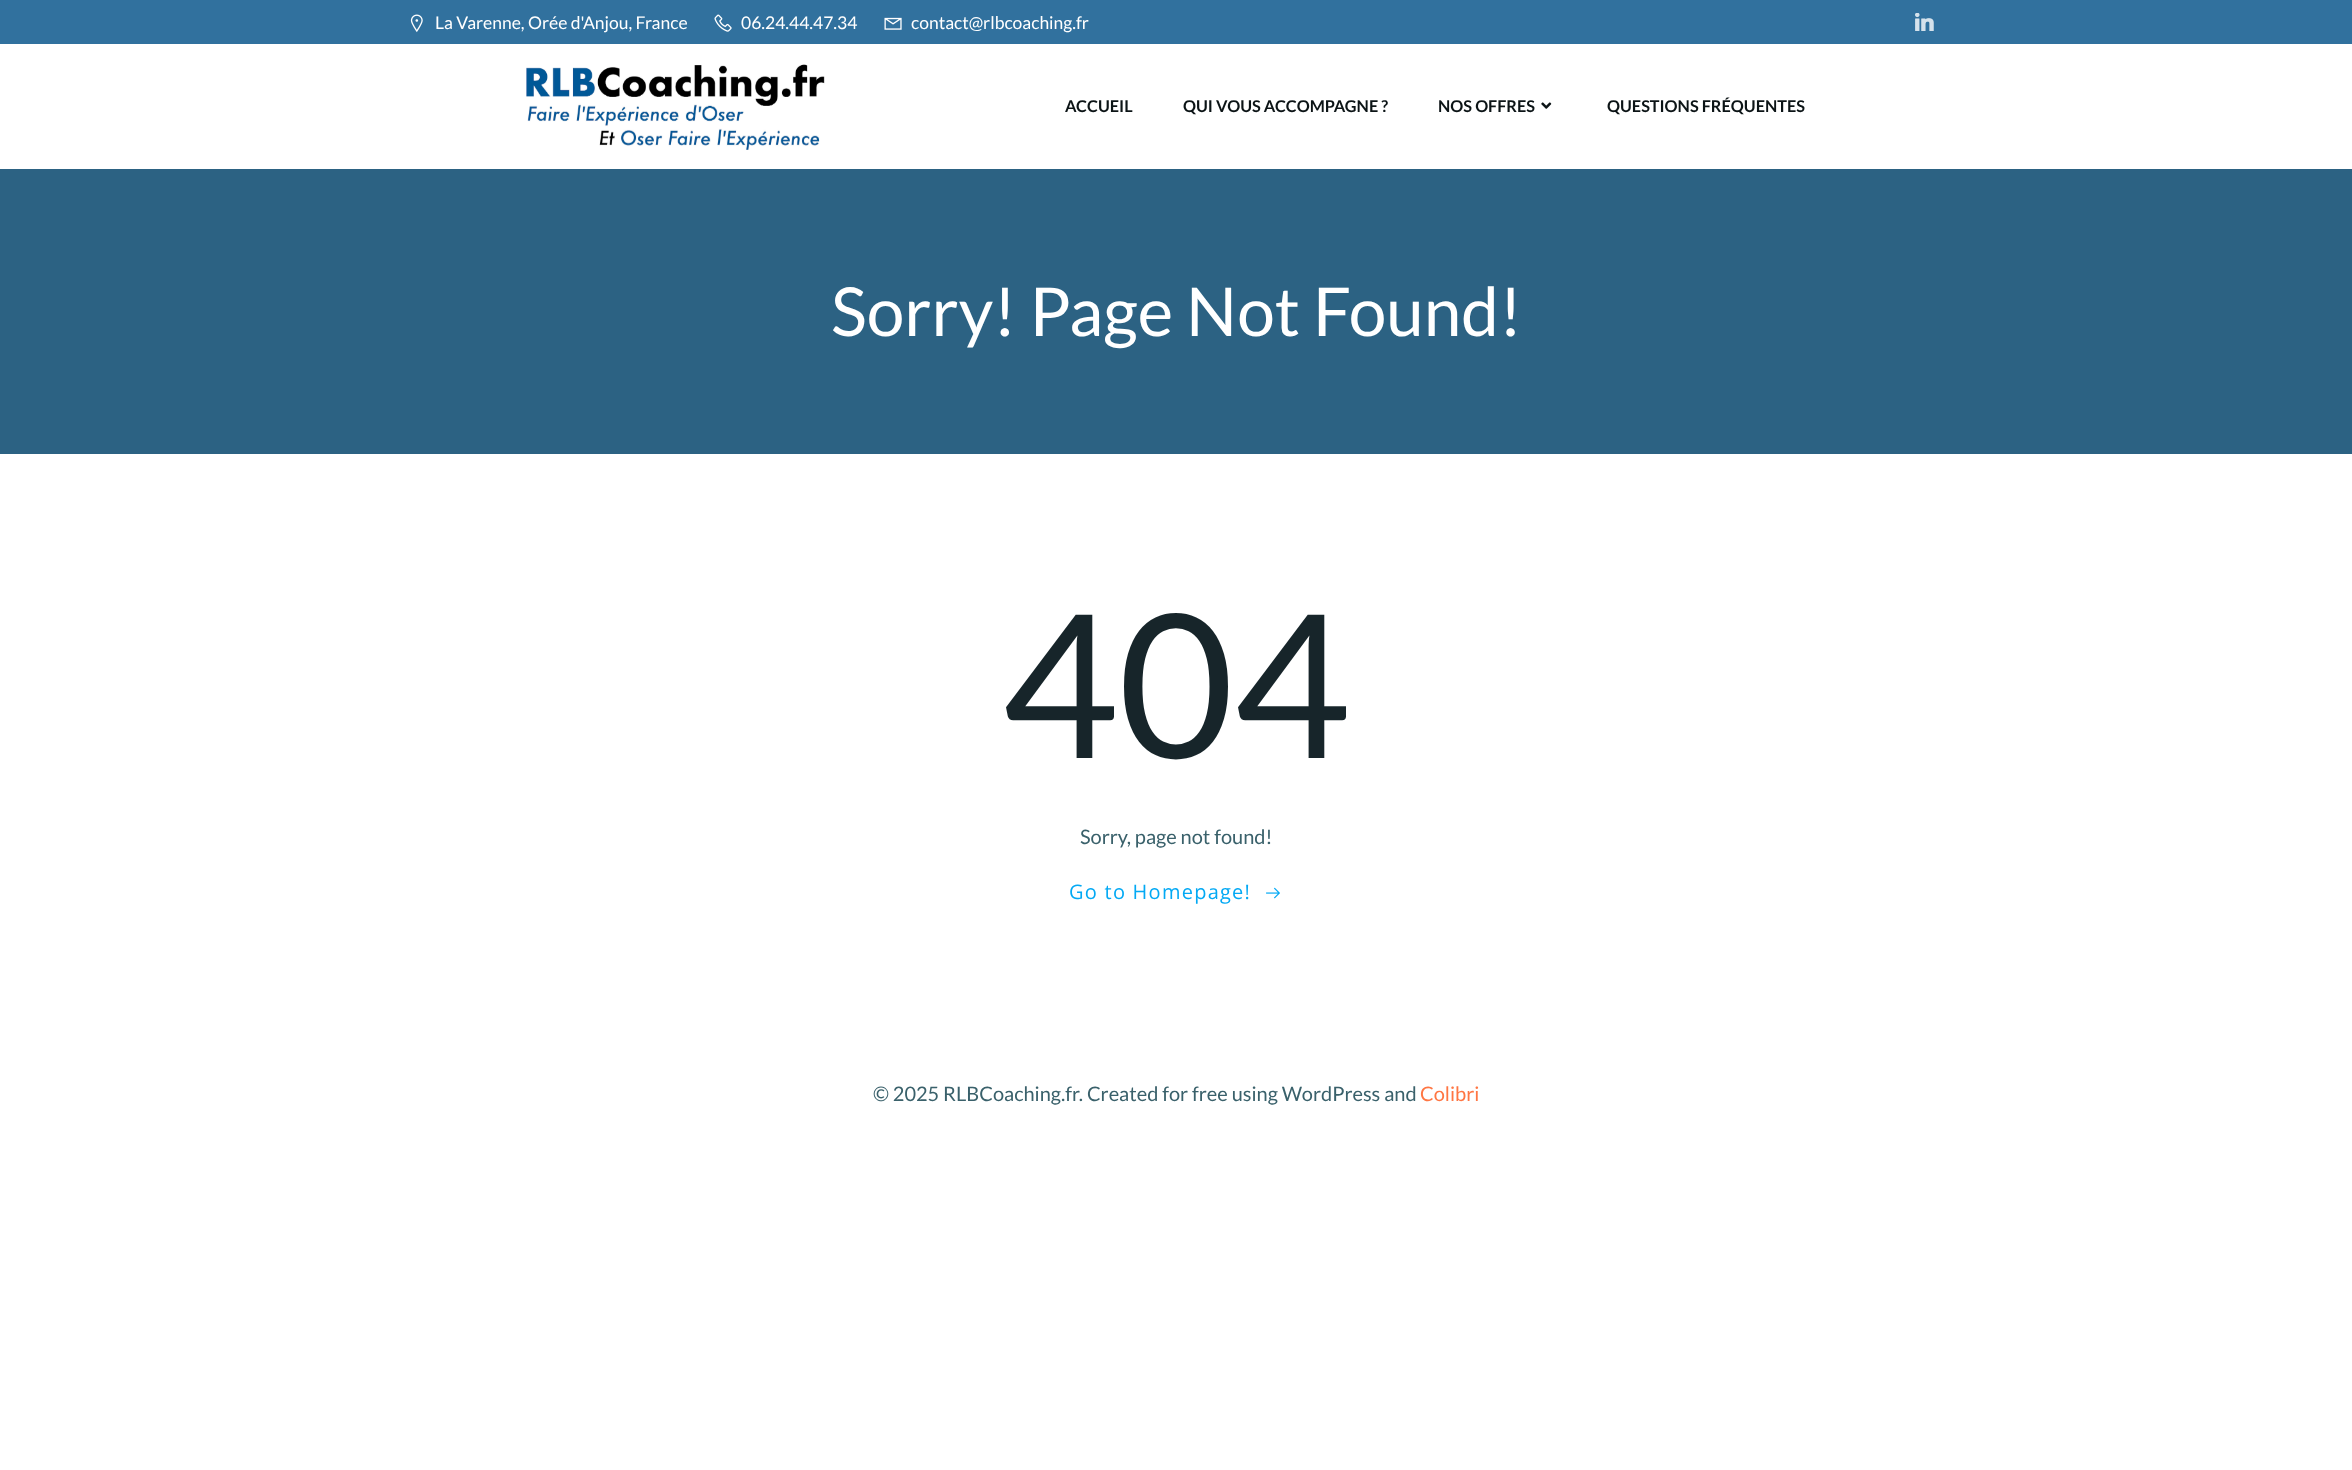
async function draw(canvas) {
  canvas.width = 2352
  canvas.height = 1470
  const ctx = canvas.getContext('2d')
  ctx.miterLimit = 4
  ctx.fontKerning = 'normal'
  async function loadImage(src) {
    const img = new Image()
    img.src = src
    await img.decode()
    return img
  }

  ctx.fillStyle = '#fff'
  ctx.fillRect(0, 0, 2352, 1470)
  ctx.fillStyle = '#31719e'
  ctx.fillRect(0, 0, 2352, 44)
  ctx.drawImage(await loadImage('image0.png'), 410, 14, 13, 19)
  ctx.font = '17.5px Lato'
  ctx.fillStyle = '#fff'
  ctx.fillText('La Varenne, Orée d\'Anjou, France', 435, 29)
  ctx.drawImage(await loadImage('image1.png'), 714, 14, 18, 18)
  ctx.fillText('06.24.44.47.34', 741, 29)
  ctx.drawImage(await loadImage('image2.png'), 884, 17, 18, 13)
  ctx.fillText('contact@rlbcoaching.fr', 911, 29)
  ctx.drawImage(await loadImage('image3.png'), 1915, 13, 19, 18)
  ctx.drawImage(await loadImage('image4.png'), 526, 64, 299, 86)
  ctx.font = 'bold 16.25px Lato'
  ctx.fillStyle = '#0c1416'
  ctx.fillText('ACCUEIL', 1065, 112)
  ctx.fillText('QUI VOUS ACCOMPAGNE ?', 1183, 112)
  ctx.fillText('NOS OFFRES', 1438, 112)
  ctx.drawImage(await loadImage('image5.png'), 1541, 102, 11, 7)
  ctx.fillText('QUESTIONS FRÉQUENTES', 1607, 112)
  ctx.fillStyle = '#2c6283'
  ctx.fillRect(0, 169, 2352, 285)
  ctx.font = '67.5px Lato'
  ctx.fillStyle = '#fff'
  ctx.fillText('Sorry! Page Not Found!', 831, 336)
  ctx.font = '200px Lato'
  ctx.fillStyle = '#17252a'
  ctx.fillText('404', 1002, 758)
  ctx.font = '20px Lato'
  ctx.fillStyle = '#3a616b'
  ctx.fillText('Sorry, page not found!', 1080, 844)
  ctx.letterSpacing = '1.25px'
  ctx.font = '20px Open Sans'
  ctx.fillStyle = '#03a9f4'
  ctx.fillText('Go to Homepage!', 1069, 899)
  ctx.drawImage(await loadImage('image6.png'), 1266, 887, 14, 12)
  ctx.letterSpacing = '0px'
  ctx.font = '20px Lato'
  ctx.fillStyle = '#3a616b'
  ctx.fillText('© 2025 RLBCoaching.fr. Created for free using WordPress and', 873, 1101)
  ctx.fillStyle = '#ff7643'
  ctx.fillText('Colibri', 1420, 1101)
}

draw(document.querySelector('canvas'))
